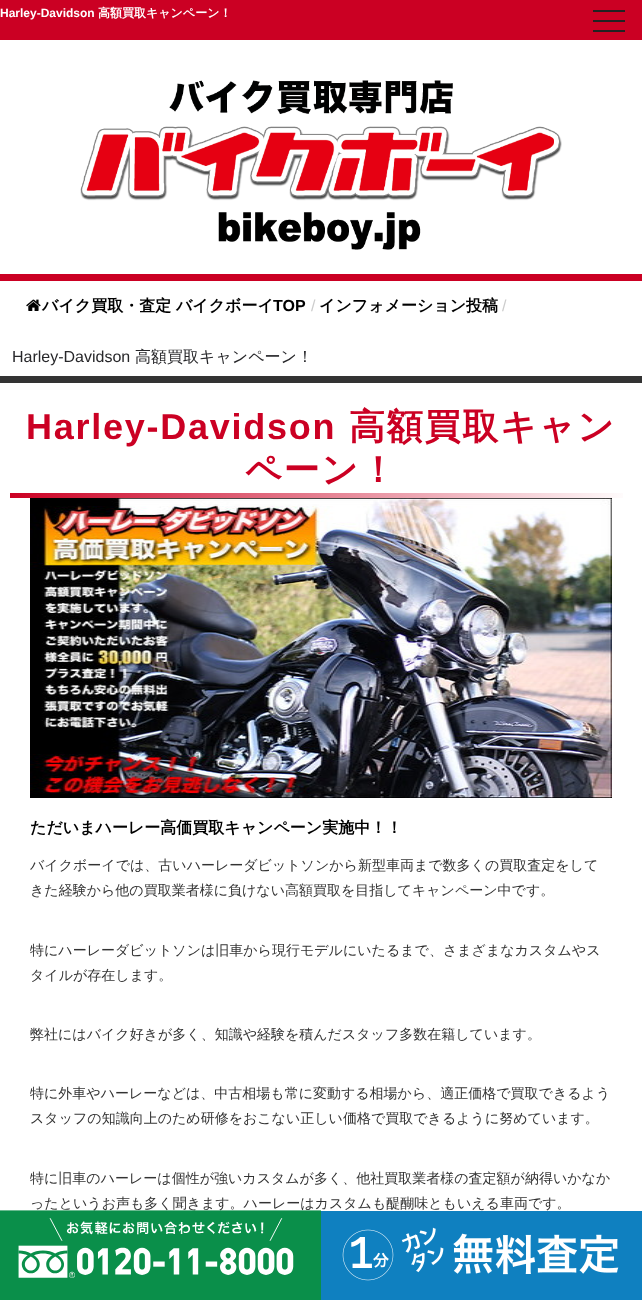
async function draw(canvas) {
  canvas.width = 642
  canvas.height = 1300
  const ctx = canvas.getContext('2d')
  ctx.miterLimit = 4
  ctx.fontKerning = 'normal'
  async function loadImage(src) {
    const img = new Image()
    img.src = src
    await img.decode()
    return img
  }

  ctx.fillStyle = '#fff'
  ctx.fillRect(0, 0, 642, 1300)
  ctx.fillStyle = '#cb0023'
  ctx.fillRect(0, 0, 642, 40)
  ctx.font = 'bold 12px Liberation Sans'
  ctx.fillStyle = '#fff'
  ctx.fillText('Harley-Davidson', 0, 17)
  ctx.font = 'bold 12px WenQuanYi Zen Hei'
  ctx.fillText('高額買取キャンペーン！', 98, 17)
  ctx.fillStyle = '#222'
  ctx.fillRect(593, 20, 32, 2)
  ctx.fillRect(593, 10, 32, 2)
  ctx.fillRect(593, 30, 32, 2)
  ctx.drawImage(await loadImage('image0.png'), 80, 80, 482, 170)
  ctx.fillStyle = '#cb0023'
  ctx.fillRect(0, 274, 642, 7)
  ctx.drawImage(await loadImage('image1.png'), 26, 299, 15, 12)
  ctx.font = 'bold 16px WenQuanYi Zen Hei'
  ctx.fillStyle = '#000'
  ctx.fillText('バイク買取・査定 バイクボーイ', 42, 311)
  ctx.font = 'bold 16px Liberation Sans'
  ctx.fillText('TOP', 273, 311)
  ctx.font = '16px Liberation Sans'
  ctx.fillStyle = '#ccc'
  ctx.fillText('/', 311, 311)
  ctx.font = 'bold 16px WenQuanYi Zen Hei'
  ctx.fillStyle = '#000'
  ctx.fillText('インフォメーション投稿', 319, 311)
  ctx.font = '16px Liberation Sans'
  ctx.fillStyle = '#ccc'
  ctx.fillText('/', 502, 311)
  ctx.fillStyle = '#27272a'
  ctx.fillText('Harley-Davidson', 12, 362)
  ctx.font = '500 16px WenQuanYi Zen Hei'
  ctx.fillText('高額買取キャンペーン！', 135, 362)
  ctx.fillStyle = '#333'
  ctx.fillRect(0, 376, 642, 7)
  ctx.drawImage(await loadImage('image2.png'), 10, 493, 613, 5)
  ctx.letterSpacing = '1.75px'
  ctx.font = 'bold 36px Liberation Sans'
  ctx.fillStyle = '#cb0023'
  ctx.fillText('Harley-Davidson', 26, 439)
  ctx.font = 'bold 36px WenQuanYi Zen Hei'
  ctx.fillText('高額買取キャン', 349, 439)
  ctx.fillText('ペーン！', 245, 482)
  ctx.drawImage(await loadImage('image3.png'), 30, 498, 582, 300)
  ctx.letterSpacing = '0px'
  ctx.font = 'bold 16px WenQuanYi Zen Hei'
  ctx.fillStyle = '#000'
  ctx.fillText('ただいまハーレー高価買取キャンペーン実施中！！', 30, 833)
  ctx.font = '500 14px WenQuanYi Zen Hei'
  ctx.fillStyle = '#333'
  ctx.fillText('バイクボーイでは、古いハーレーダビットソンから新型車両まで数多くの買取査定をして', 30, 870)
  ctx.fillText('きた経験から他の買取業者様に負けない高額買取を目指してキャンペーン中です。', 30, 895)
  ctx.fillText('特にハーレーダビットソンは旧車から現行モデルにいたるまで、さまざまなカスタムやス', 30, 955)
  ctx.fillText('タイルが存在します。', 30, 980)
  ctx.fillText('弊社にはバイク好きが多く、知識や経験を積んだスタッフ多数在籍しています。', 30, 1039)
  ctx.fillText('特に外車やハーレーなどは、中古相場も常に変動する相場から、適正価格で買取できるよう', 30, 1098)
  ctx.fillText('スタッフの知識向上のため研修をおこない正しい価格で買取できるように努めています。', 30, 1123)
  ctx.fillText('特に旧車のハーレーは個性が強いカスタムが多く、他社買取業者様の査定額が納得いかなか', 30, 1183)
  ctx.fillText('ったというお声も多く聞きます。ハーレーはカスタムも醍醐味ともいえる車両です。', 30, 1208)
  ctx.drawImage(await loadImage('image4.png'), 0, 1210, 321, 90)
  ctx.drawImage(await loadImage('image5.png'), 321, 1211, 321, 89)
}

draw(document.querySelector('canvas'))
